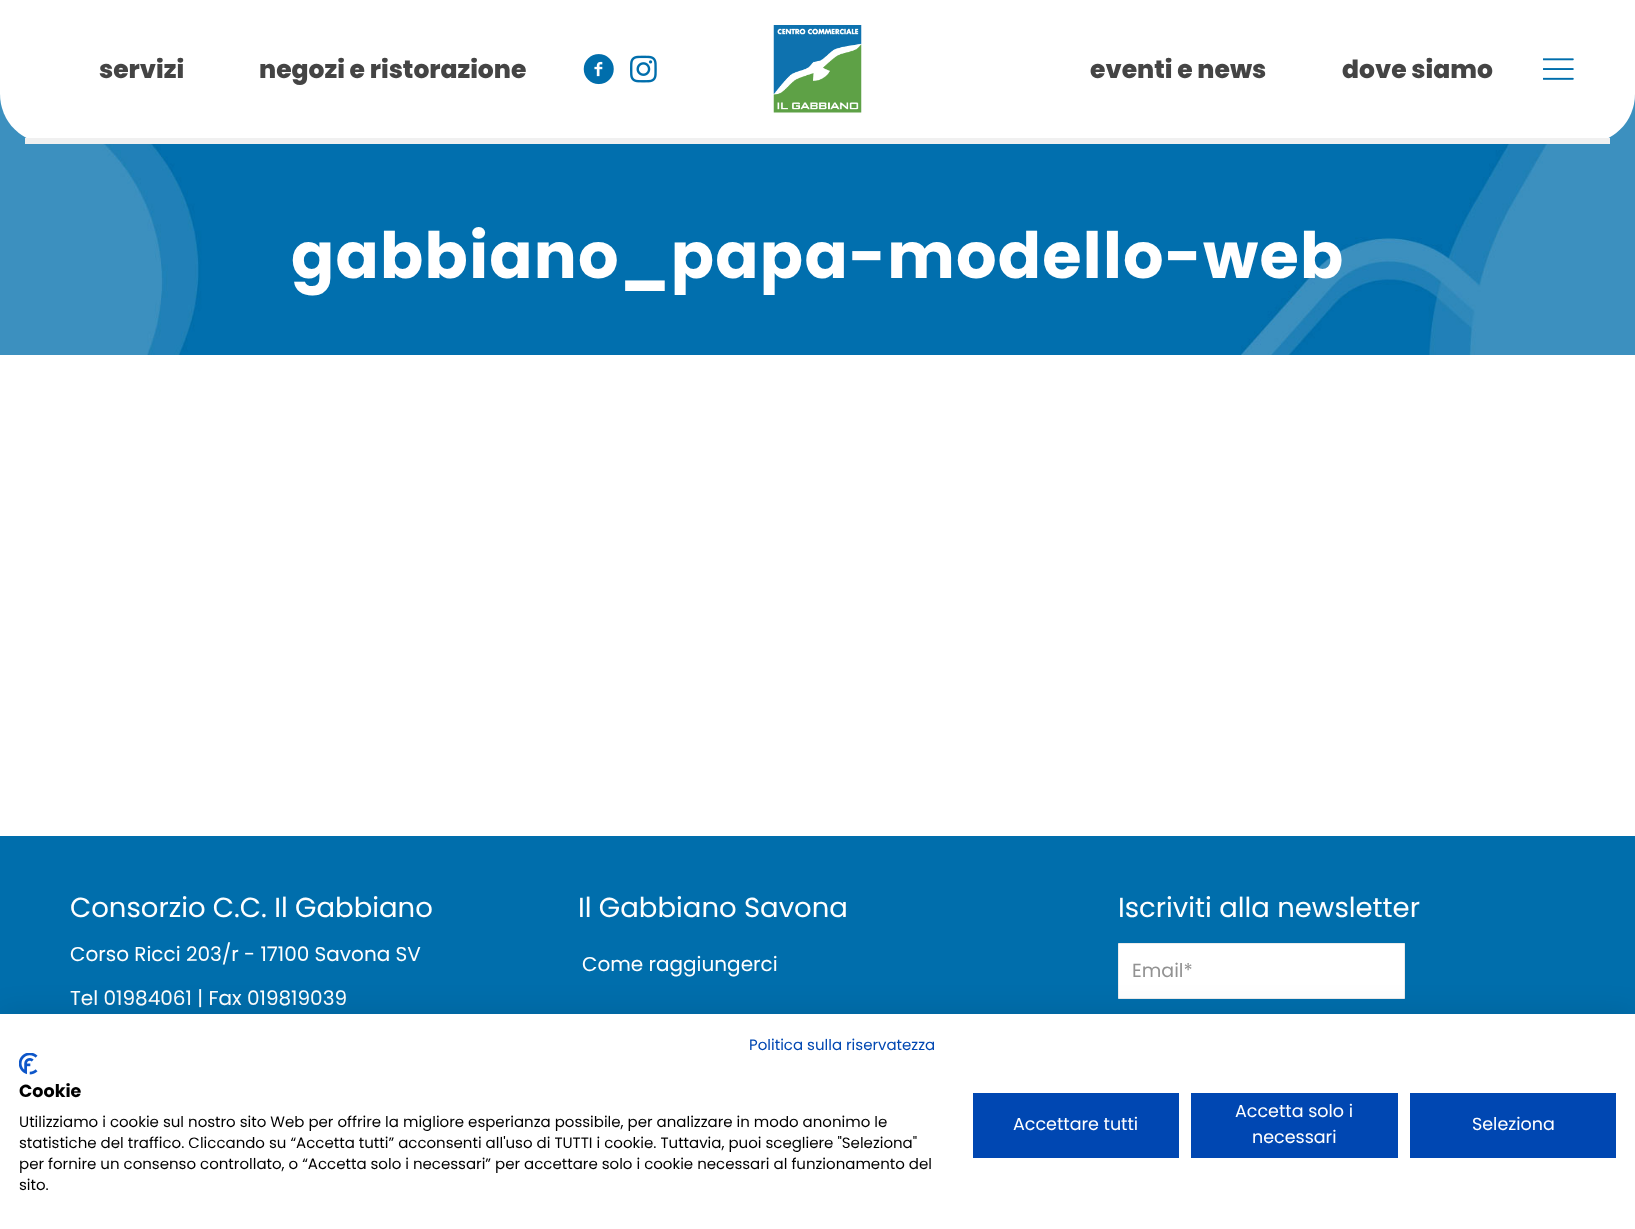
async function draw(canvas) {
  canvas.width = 1635
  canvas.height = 1229
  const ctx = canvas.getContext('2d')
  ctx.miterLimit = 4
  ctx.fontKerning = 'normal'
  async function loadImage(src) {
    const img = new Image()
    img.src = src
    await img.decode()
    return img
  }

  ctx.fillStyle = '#fff'
  ctx.fillRect(0, 0, 1635, 1229)
  ctx.drawImage(await loadImage('image4.png'), 0, 94, 1635, 261)
  ctx.beginPath()
  ctx.roundRect(0, 0, 1635, 144, [0, 0, 50, 50])
  ctx.fill()
  ctx.fillStyle = '#f0f0f0'
  ctx.fillRect(25, 138, 1585, 6)
  ctx.font = '800 25px Poppins'
  ctx.fillStyle = '#444'
  ctx.fillText('servizi', 99, 78)
  ctx.fillText('negozi e ristorazione', 259, 78)
  ctx.drawImage(await loadImage('image0.png'), 583, 54, 31, 31)
  ctx.drawImage(await loadImage('image1.png'), 630, 55, 27, 28)
  ctx.drawImage(await loadImage('image2.png'), 773, 25, 89, 88)
  ctx.fillText('eventi e news', 1090, 78)
  ctx.fillText('dove siamo', 1342, 78)
  ctx.drawImage(await loadImage('image3.png'), 1543, 58, 31, 22)
  ctx.letterSpacing = '1.25px'
  ctx.font = 'bold 63.75px Poppins'
  ctx.fillStyle = '#fff'
  ctx.fillText('gabbiano_papa-modello-web', 291, 278)
  ctx.fillStyle = '#006eac'
  ctx.fillRect(0, 836, 1635, 178)
  ctx.letterSpacing = '0px'
  ctx.font = '27.5px Poppins'
  ctx.fillStyle = '#fff'
  ctx.fillText('Consorzio C.C. Il Gabbiano', 70, 917)
  ctx.font = '20px Poppins'
  ctx.fillText('Corso Ricci 203/r - 17100 Savona SV', 70, 961)
  ctx.fillText('Tel 01984061 | Fax 019819039', 70, 1005)
  ctx.font = '27.5px Poppins'
  ctx.fillText('Il Gabbiano Savona', 578, 917)
  ctx.font = '20px Poppins'
  ctx.fillText('Come raggiungerci', 582, 971)
  ctx.font = '27.5px Poppins'
  ctx.fillText('Iscriviti alla newsletter', 1118, 917)
  ctx.beginPath()
  ctx.rect(1118.5, 943.5, 286, 55)
  ctx.fill()
  ctx.strokeStyle = '#ebebeb'
  ctx.stroke()
  ctx.font = '19px Poppins'
  ctx.fillStyle = '#929292'
  ctx.fillText('Email*', 1132, 977)
  ctx.fillStyle = '#0000001a'
  ctx.filter = 'blur(15px)'
  ctx.beginPath()
  ctx.rect(0, 1014, 1635, 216)
  ctx.fill()
  ctx.filter = 'none'
  ctx.fillStyle = '#fff'
  ctx.fillRect(0, 1014, 1635, 215)
  ctx.font = '15px Poppins'
  ctx.fillStyle = '#0047b2'
  ctx.fillText('Politica sulla riservatezza', 749, 1050)
  ctx.drawImage(await loadImage('image5.png'), 19, 1053, 19, 22)
  ctx.font = 'bold 17.5px Poppins'
  ctx.fillStyle = '#000'
  ctx.fillText('Cookie', 19, 1097)
  ctx.font = '15px Poppins'
  ctx.fillText('Utilizziamo i cookie sul nostro sito Web per offrire la migliore esperianza possibile, per analizzare in modo anonimo le', 19, 1127)
  ctx.fillText('statistiche del traffico. Cliccando su “Accetta tutti” acconsenti all\'uso di TUTTI i cookie. Tuttavia, puoi scegliere "Seleziona"', 19, 1148)
  ctx.fillText('per fornire un consenso controllato, o “Accetta solo i necessari” per accettare solo i cookie necessari al funzionamento del', 19, 1169)
  ctx.fillText('sito.', 19, 1190)
  ctx.fillStyle = '#0047b2'
  ctx.fillRect(973, 1093, 206, 65)
  ctx.font = '17.5px Poppins'
  ctx.fillStyle = '#fff'
  ctx.fillText('Accettare tutti', 1013, 1130)
  ctx.fillStyle = '#0047b2'
  ctx.fillRect(1191, 1093, 207, 65)
  ctx.fillStyle = '#fff'
  ctx.fillText('Accetta solo i', 1235, 1117)
  ctx.fillText('necessari', 1252, 1143)
  ctx.fillStyle = '#0047b2'
  ctx.fillRect(1410, 1093, 206, 65)
  ctx.fillStyle = '#fff'
  ctx.fillText('Seleziona', 1472, 1130)
}

draw(document.querySelector('canvas'))
